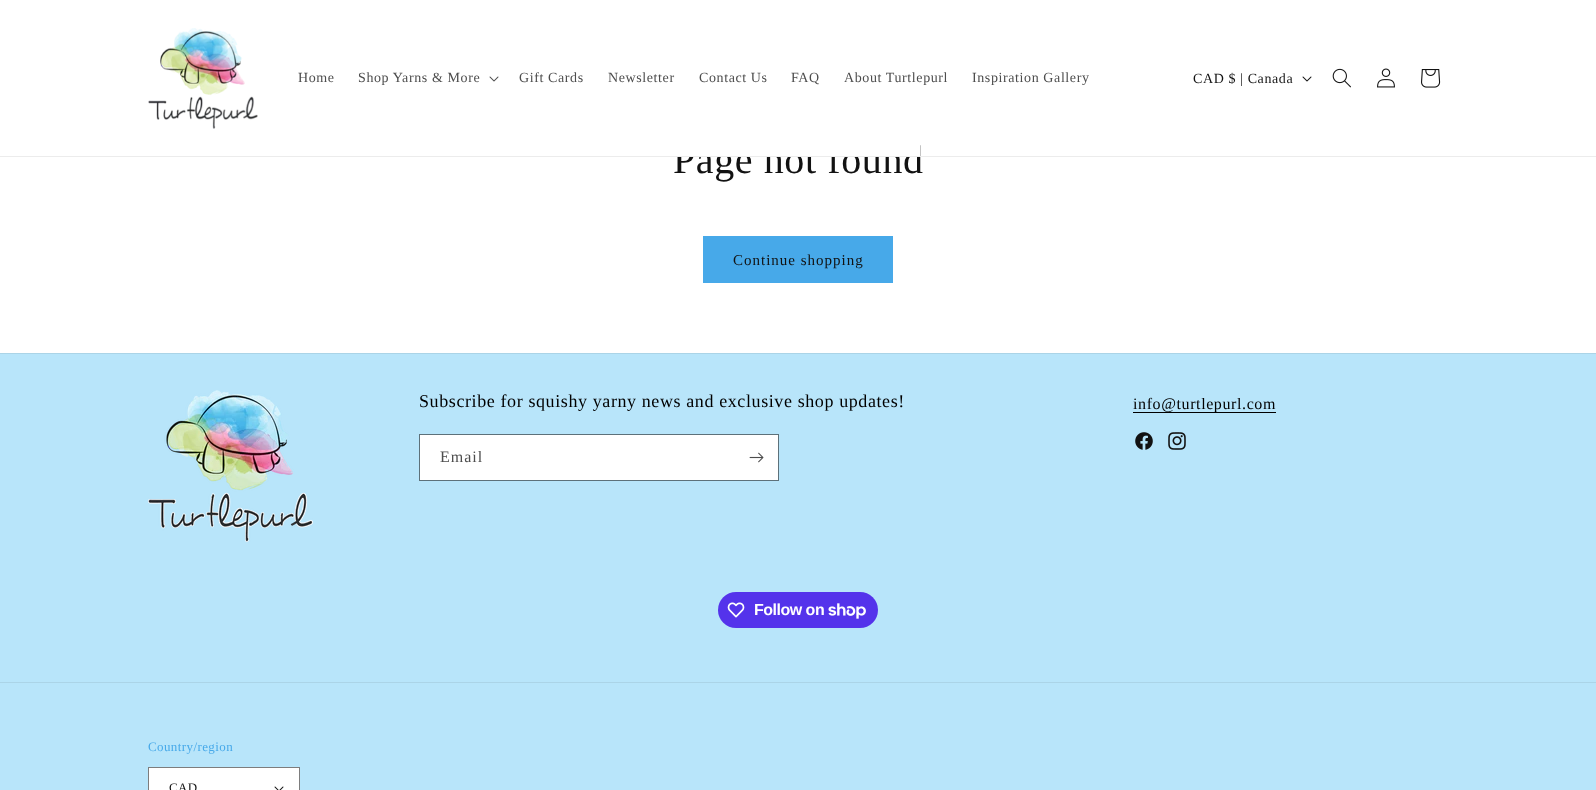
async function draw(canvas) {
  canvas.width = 1596
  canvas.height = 790
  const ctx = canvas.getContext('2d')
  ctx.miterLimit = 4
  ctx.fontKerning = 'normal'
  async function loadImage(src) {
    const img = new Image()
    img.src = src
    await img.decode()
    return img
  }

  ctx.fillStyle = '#fff'
  ctx.fillRect(0, 0, 1596, 790)
  ctx.letterSpacing = '0.6px'
  ctx.font = '40px Liberation Serif'
  ctx.fillStyle = '#121212'
  ctx.fillText('Page not found', 673, 173)
  ctx.fillStyle = '#fff'
  ctx.fillRect(673, 144, 247, 12)
  ctx.fillStyle = '#ececec'
  ctx.fillRect(0, 156, 1596, 1)
  ctx.drawImage(await loadImage('image0.png'), 148, 28, 110, 101)
  ctx.font = '14px Liberation Serif'
  ctx.fillStyle = '#4d4d4d'
  ctx.fillText('Home', 298, 82)
  ctx.fillText('Shop Yarns & More', 358, 82)
  ctx.drawImage(await loadImage('image1.png'), 489, 76, 10, 6)
  ctx.fillText('Gift Cards', 519, 82)
  ctx.fillText('Newsletter', 608, 82)
  ctx.fillText('Contact Us', 699, 82)
  ctx.fillText('FAQ', 791, 82)
  ctx.fillText('About Turtlepurl', 844, 82)
  ctx.fillText('Inspiration Gallery', 972, 82)
  ctx.fillStyle = '#121212'
  ctx.fillText('CAD $ | Canada', 1193, 83)
  ctx.drawImage(await loadImage('image2.png'), 1302, 76, 10, 6)
  ctx.drawImage(await loadImage('image3.png'), 1332, 68, 19, 20)
  ctx.drawImage(await loadImage('image4.png'), 1377, 68, 18, 20)
  ctx.drawImage(await loadImage('image5.png'), 1421, 69, 20, 19)
  ctx.fillStyle = '#47a9e9'
  ctx.fillRect(703, 236, 190, 47)
  ctx.letterSpacing = '1px'
  ctx.font = '15px Liberation Serif'
  ctx.fillStyle = '#121212'
  ctx.fillText('Continue shopping', 733, 265)
  ctx.fillStyle = '#b8e5fa'
  ctx.fillRect(0, 354, 1596, 436)
  ctx.fillStyle = '#abd4e7'
  ctx.fillRect(0, 353, 1596, 1)
  ctx.drawImage(await loadImage('image6.png'), 148, 390, 165, 152)
  ctx.letterSpacing = '0.6px'
  ctx.font = '18px Liberation Serif'
  ctx.fillStyle = '#000'
  ctx.fillText('Subscribe for squishy yarny news and exclusive shop updates!', 419, 407)
  ctx.fillStyle = '#fff'
  ctx.fillRect(420, 435, 358, 45)
  ctx.strokeStyle = '#5d717a'
  ctx.strokeRect(419.5, 434.5, 359, 46)
  ctx.letterSpacing = '1px'
  ctx.font = '16px Liberation Serif'
  ctx.fillStyle = '#4d4d4d'
  ctx.fillText('Email', 440, 462)
  ctx.drawImage(await loadImage('image7.png'), 749, 452, 15, 11)
  ctx.fillStyle = '#000'
  ctx.fillRect(1133, 412, 143, 1)
  ctx.letterSpacing = '0.6px'
  ctx.fillText('info@turtlepurl.com', 1133, 409)
  ctx.drawImage(await loadImage('image8.png'), 1135, 432, 18, 18)
  ctx.drawImage(await loadImage('image9.png'), 1168, 432, 18, 18)
  ctx.fillStyle = '#5433eb'
  ctx.beginPath()
  ctx.roundRect(718, 592, 160, 36, 18)
  ctx.fill()
  ctx.drawImage(await loadImage('image10.png'), 727, 602, 18, 16)
  ctx.letterSpacing = '-0.5px'
  ctx.font = 'bold 16px Liberation Sans'
  ctx.fillStyle = '#fff'
  ctx.fillText('Follow on', 754, 615)
  ctx.drawImage(await loadImage('image11.png'), 828, 603, 38, 16)
  ctx.fillStyle = '#abd4e7'
  ctx.fillRect(0, 682, 1596, 1)
  ctx.letterSpacing = '0.4px'
  ctx.font = '13px Liberation Serif'
  ctx.fillStyle = '#47a9e9'
  ctx.fillText('Country/region', 148, 751)
  ctx.fillStyle = '#fff'
  ctx.fillRect(149, 768, 150, 22)
  ctx.drawImage(await loadImage('image12.png'), 274, 786, 10, 4)
  ctx.strokeStyle = '#7d7d7d'
  ctx.strokeRect(148.5, 767.5, 151, 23)
  ctx.fillStyle = '#121212'
  ctx.fillText('CAD', 169, 792)
}

draw(document.querySelector('canvas'))
